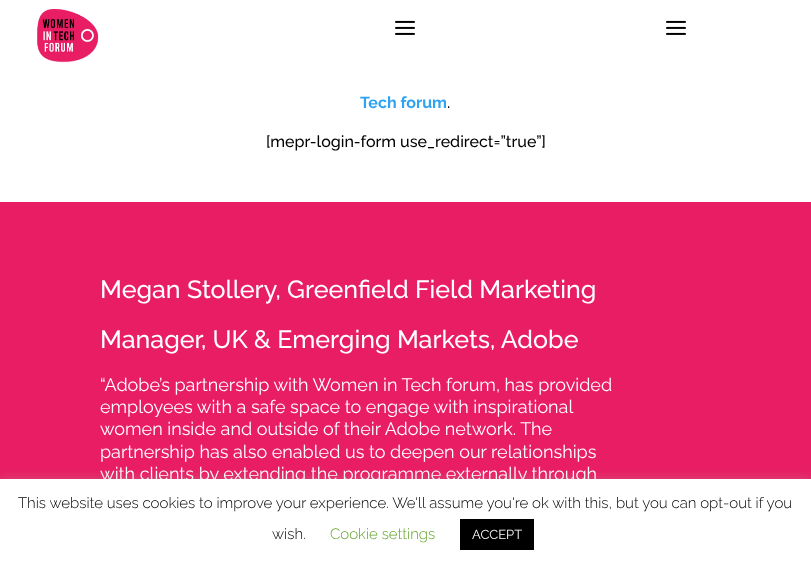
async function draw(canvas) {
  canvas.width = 811
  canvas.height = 567
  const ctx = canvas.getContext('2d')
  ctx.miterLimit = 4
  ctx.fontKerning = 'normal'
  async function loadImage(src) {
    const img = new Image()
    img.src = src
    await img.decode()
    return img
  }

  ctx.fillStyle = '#fff'
  ctx.fillRect(0, 0, 811, 567)
  ctx.drawImage(await loadImage('image0.png'), 37, 9, 62, 54)
  ctx.drawImage(await loadImage('image1.png'), 395, 20, 20, 15)
  ctx.drawImage(await loadImage('image1.png'), 666, 20, 20, 15)
  ctx.font = 'bold 16px Raleway'
  ctx.fillStyle = '#2ea3f2'
  ctx.fillText('Tech forum', 360, 108)
  ctx.font = '500 16px Raleway'
  ctx.fillStyle = '#000'
  ctx.fillText('.', 447, 108)
  ctx.fillText('[mepr-login-form use_redirect=”true”]', 266, 147)
  ctx.fillStyle = '#e91d63'
  ctx.fillRect(0, 202, 811, 277)
  ctx.font = '500 25px Raleway'
  ctx.fillStyle = '#fff'
  ctx.fillText('Megan Stollery, Greenfield Field Marketing', 100, 298)
  ctx.fillText('Manager, UK & Emerging Markets, Adobe', 100, 348)
  ctx.font = '18px Raleway'
  ctx.fillText('“Adobe’s partnership with Women in Tech forum, has provided', 100, 391)
  ctx.fillText('employees with a safe space to engage with inspirational', 100, 413)
  ctx.fillText('women inside and outside of their Adobe network. The', 100, 435)
  ctx.fillText('partnership has also enabled us to deepen our relationships', 100, 458)
  ctx.fillText('with clients by extending the programme externally through', 100, 480)
  ctx.fillStyle = '#acabab4d'
  ctx.filter = 'blur(5px)'
  ctx.beginPath()
  ctx.rect(0, 478, 811, 88)
  ctx.fill()
  ctx.filter = 'none'
  ctx.fillStyle = '#fff'
  ctx.fillRect(0, 479, 811, 88)
  ctx.font = '300 15px Raleway'
  ctx.fillStyle = '#000'
  ctx.fillText('This website uses cookies to improve your experience. We\'ll assume you\'re ok with this, but you can opt-out if you', 18, 508)
  ctx.fillText('wish.', 272, 539)
  ctx.fillStyle = '#62a329'
  ctx.fillText('Cookie settings', 330, 539)
  ctx.fillStyle = '#000'
  ctx.fillRect(460, 519, 74, 31)
  ctx.font = '13px Raleway'
  ctx.fillStyle = '#fff'
  ctx.fillText('ACCEPT', 472, 539)
}

draw(document.querySelector('canvas'))
